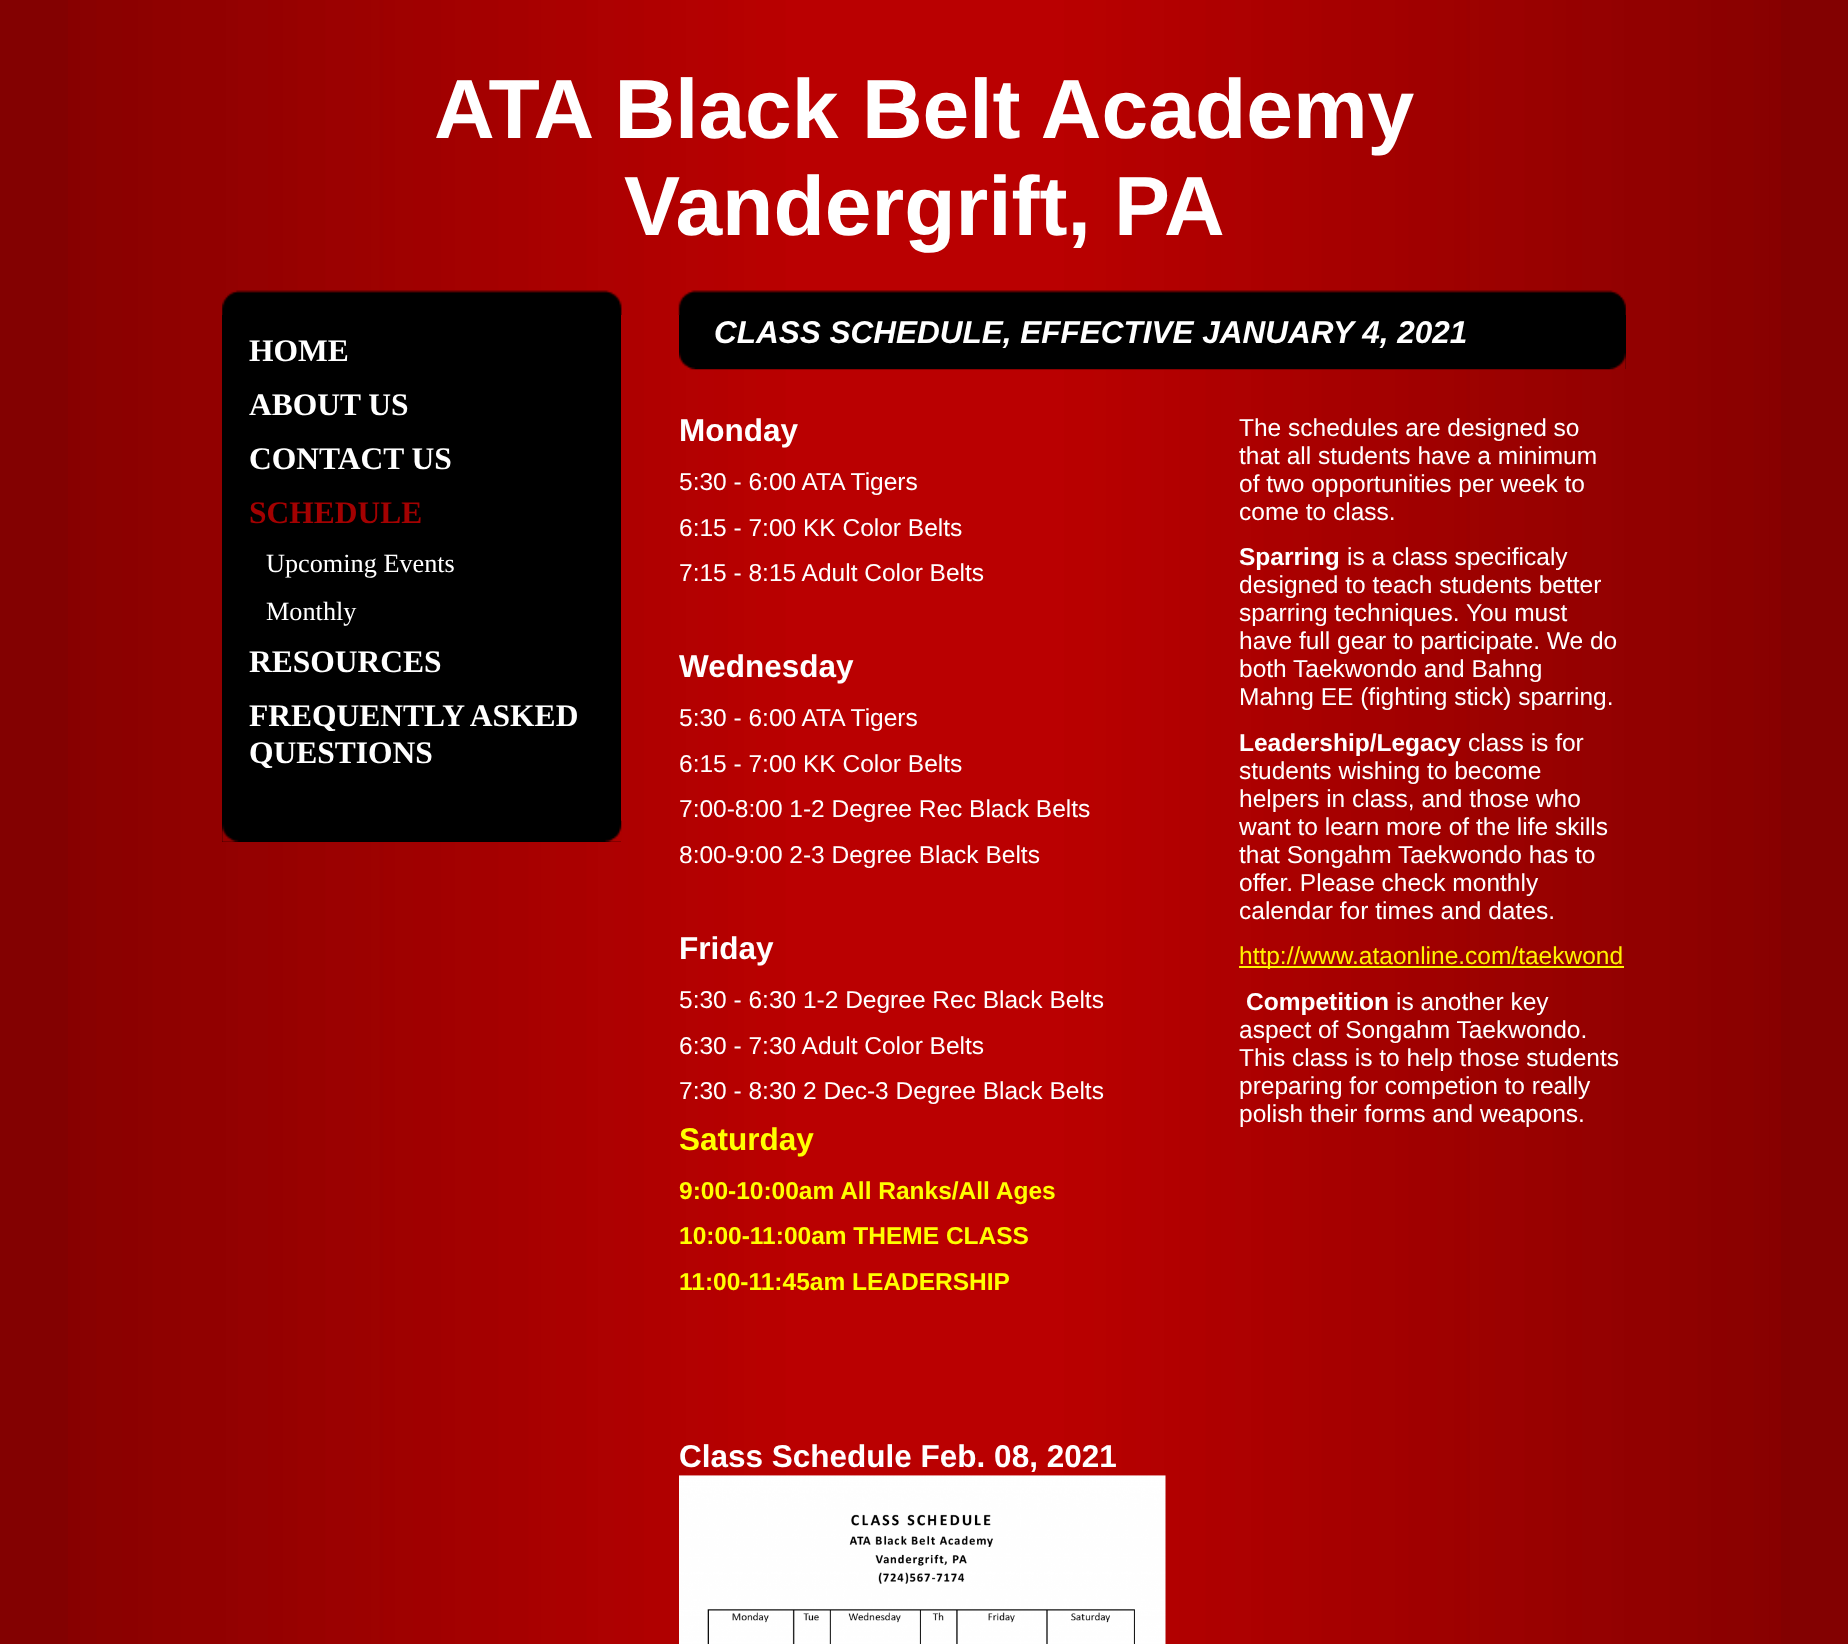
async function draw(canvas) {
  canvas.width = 1848
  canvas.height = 1644
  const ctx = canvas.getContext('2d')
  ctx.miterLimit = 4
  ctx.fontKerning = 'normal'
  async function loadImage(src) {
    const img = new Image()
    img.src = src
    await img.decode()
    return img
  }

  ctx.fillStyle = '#830101'
  ctx.fillRect(0, 0, 1848, 1644)
  ctx.drawImage(await loadImage('image0.png'), 68, 0, 1713, 1644)
  ctx.drawImage(await loadImage('image1.png'), 222, 290, 1404, 25)
  ctx.font = 'bold 84px Liberation Sans'
  ctx.fillStyle = '#fff'
  ctx.fillText('ATA Black Belt Academy', 434, 138)
  ctx.fillText('Vandergrift, PA', 624, 235)
  ctx.fillStyle = '#000'
  ctx.fillRect(222, 315, 399, 527)
  ctx.drawImage(await loadImage('image2.png'), 222, 820, 400, 22)
  ctx.font = 'bold 31.5px Liberation Serif'
  ctx.fillStyle = '#fff'
  ctx.fillText('HOME', 249, 361)
  ctx.fillText('ABOUT US', 249, 415)
  ctx.fillText('CONTACT US', 249, 469)
  ctx.fillStyle = '#a30101'
  ctx.fillText('SCHEDULE', 249, 523)
  ctx.font = '26.25px Liberation Serif'
  ctx.fillStyle = '#fff'
  ctx.fillText('Upcoming Events', 266, 572)
  ctx.fillText('Monthly', 266, 620)
  ctx.font = 'bold 31.5px Liberation Serif'
  ctx.fillText('RESOURCES', 249, 672)
  ctx.fillText('FREQUENTLY ASKED', 249, 726)
  ctx.fillText('QUESTIONS', 249, 763)
  ctx.fillStyle = '#000'
  ctx.fillRect(679, 315, 947, 54)
  ctx.drawImage(await loadImage('image3.png'), 679, 352, 947, 18)
  ctx.font = 'italic bold 31.5px Liberation Sans'
  ctx.fillStyle = '#fff'
  ctx.fillText('CLASS SCHEDULE, EFFECTIVE JANUARY 4, 2021', 714, 343)
  ctx.font = 'bold 31.5px Liberation Sans'
  ctx.fillText('Monday', 679, 441)
  ctx.font = '24.5px Liberation Sans'
  ctx.fillText('5:30 - 6:00 ATA Tigers', 679, 490)
  ctx.fillText('6:15 - 7:00 KK Color Belts', 679, 536)
  ctx.fillText('7:15 - 8:15 Adult Color Belts', 679, 581)
  ctx.font = 'bold 31.5px Liberation Sans'
  ctx.fillText('Wednesday', 679, 677)
  ctx.font = '24.5px Liberation Sans'
  ctx.fillText('5:30 - 6:00 ATA Tigers', 679, 726)
  ctx.fillText('6:15 - 7:00 KK Color Belts', 679, 772)
  ctx.fillText('7:00-8:00 1-2 Degree Rec Black Belts', 679, 817)
  ctx.fillText('8:00-9:00 2-3 Degree Black Belts', 679, 863)
  ctx.font = 'bold 31.5px Liberation Sans'
  ctx.fillText('Friday', 679, 959)
  ctx.font = '24.5px Liberation Sans'
  ctx.fillText('5:30 - 6:30 1-2 Degree Rec Black Belts', 679, 1008)
  ctx.fillText('6:30 - 7:30 Adult Color Belts', 679, 1054)
  ctx.fillText('7:30 - 8:30 2 Dec-3 Degree Black Belts', 679, 1099)
  ctx.font = 'bold 31.5px Liberation Sans'
  ctx.fillStyle = '#ff0'
  ctx.fillText('Saturday', 679, 1150)
  ctx.font = 'bold 24.5px Liberation Sans'
  ctx.fillText('9:00-10:00am All Ranks/All Ages', 679, 1199)
  ctx.fillText('10:00-11:00am THEME CLASS', 679, 1244)
  ctx.fillText('11:00-11:45am LEADERSHIP', 679, 1290)
  ctx.font = 'bold 31.5px Liberation Sans'
  ctx.fillStyle = '#fff'
  ctx.fillText('Class Schedule Feb. 08, 2021', 679, 1467)
  ctx.drawImage(await loadImage('image4.png'), 679, 1475, 487, 169)
  ctx.font = '24.5px Liberation Sans'
  ctx.fillText('The schedules are designed so', 1239, 436)
  ctx.fillText('that all students have a minimum', 1239, 464)
  ctx.fillText('of two opportunities per week to', 1239, 492)
  ctx.fillText('come to class.', 1239, 520)
  ctx.font = 'bold 24.5px Liberation Sans'
  ctx.fillText('Sparring', 1239, 565)
  ctx.font = '24.5px Liberation Sans'
  ctx.fillText('is a class specificaly', 1347, 565)
  ctx.fillText('designed to teach students better', 1239, 593)
  ctx.fillText('sparring techniques. You must', 1239, 621)
  ctx.fillText('have full gear to participate. We do', 1239, 649)
  ctx.fillText('both Taekwondo and Bahng', 1239, 677)
  ctx.fillText('Mahng EE (fighting stick) sparring.', 1239, 705)
  ctx.font = 'bold 24.5px Liberation Sans'
  ctx.fillText('Leadership/Legacy', 1239, 751)
  ctx.font = '24.5px Liberation Sans'
  ctx.fillText('class is for', 1468, 751)
  ctx.fillText('students wishing to become', 1239, 779)
  ctx.fillText('helpers in class, and those who', 1239, 807)
  ctx.fillText('want to learn more of the life skills', 1239, 835)
  ctx.fillText('that Songahm Taekwondo has to', 1239, 863)
  ctx.fillText('offer. Please check monthly', 1239, 891)
  ctx.fillText('calendar for times and dates.', 1239, 919)
  ctx.fillStyle = '#fff200'
  ctx.fillRect(1239, 966, 385, 2)
  ctx.fillText('http://www.ataonline.com/taekwond', 1239, 964)
  ctx.font = 'bold 24.5px Liberation Sans'
  ctx.fillStyle = '#fff'
  ctx.fillText('Competition', 1246, 1010)
  ctx.font = '24.5px Liberation Sans'
  ctx.fillText('is another key', 1396, 1010)
  ctx.fillText('aspect of Songahm Taekwondo.', 1239, 1038)
  ctx.fillText('This class is to help those students', 1239, 1066)
  ctx.fillText('preparing for competion to really', 1239, 1094)
  ctx.fillText('polish their forms and weapons.', 1239, 1122)
}

draw(document.querySelector('canvas'))
